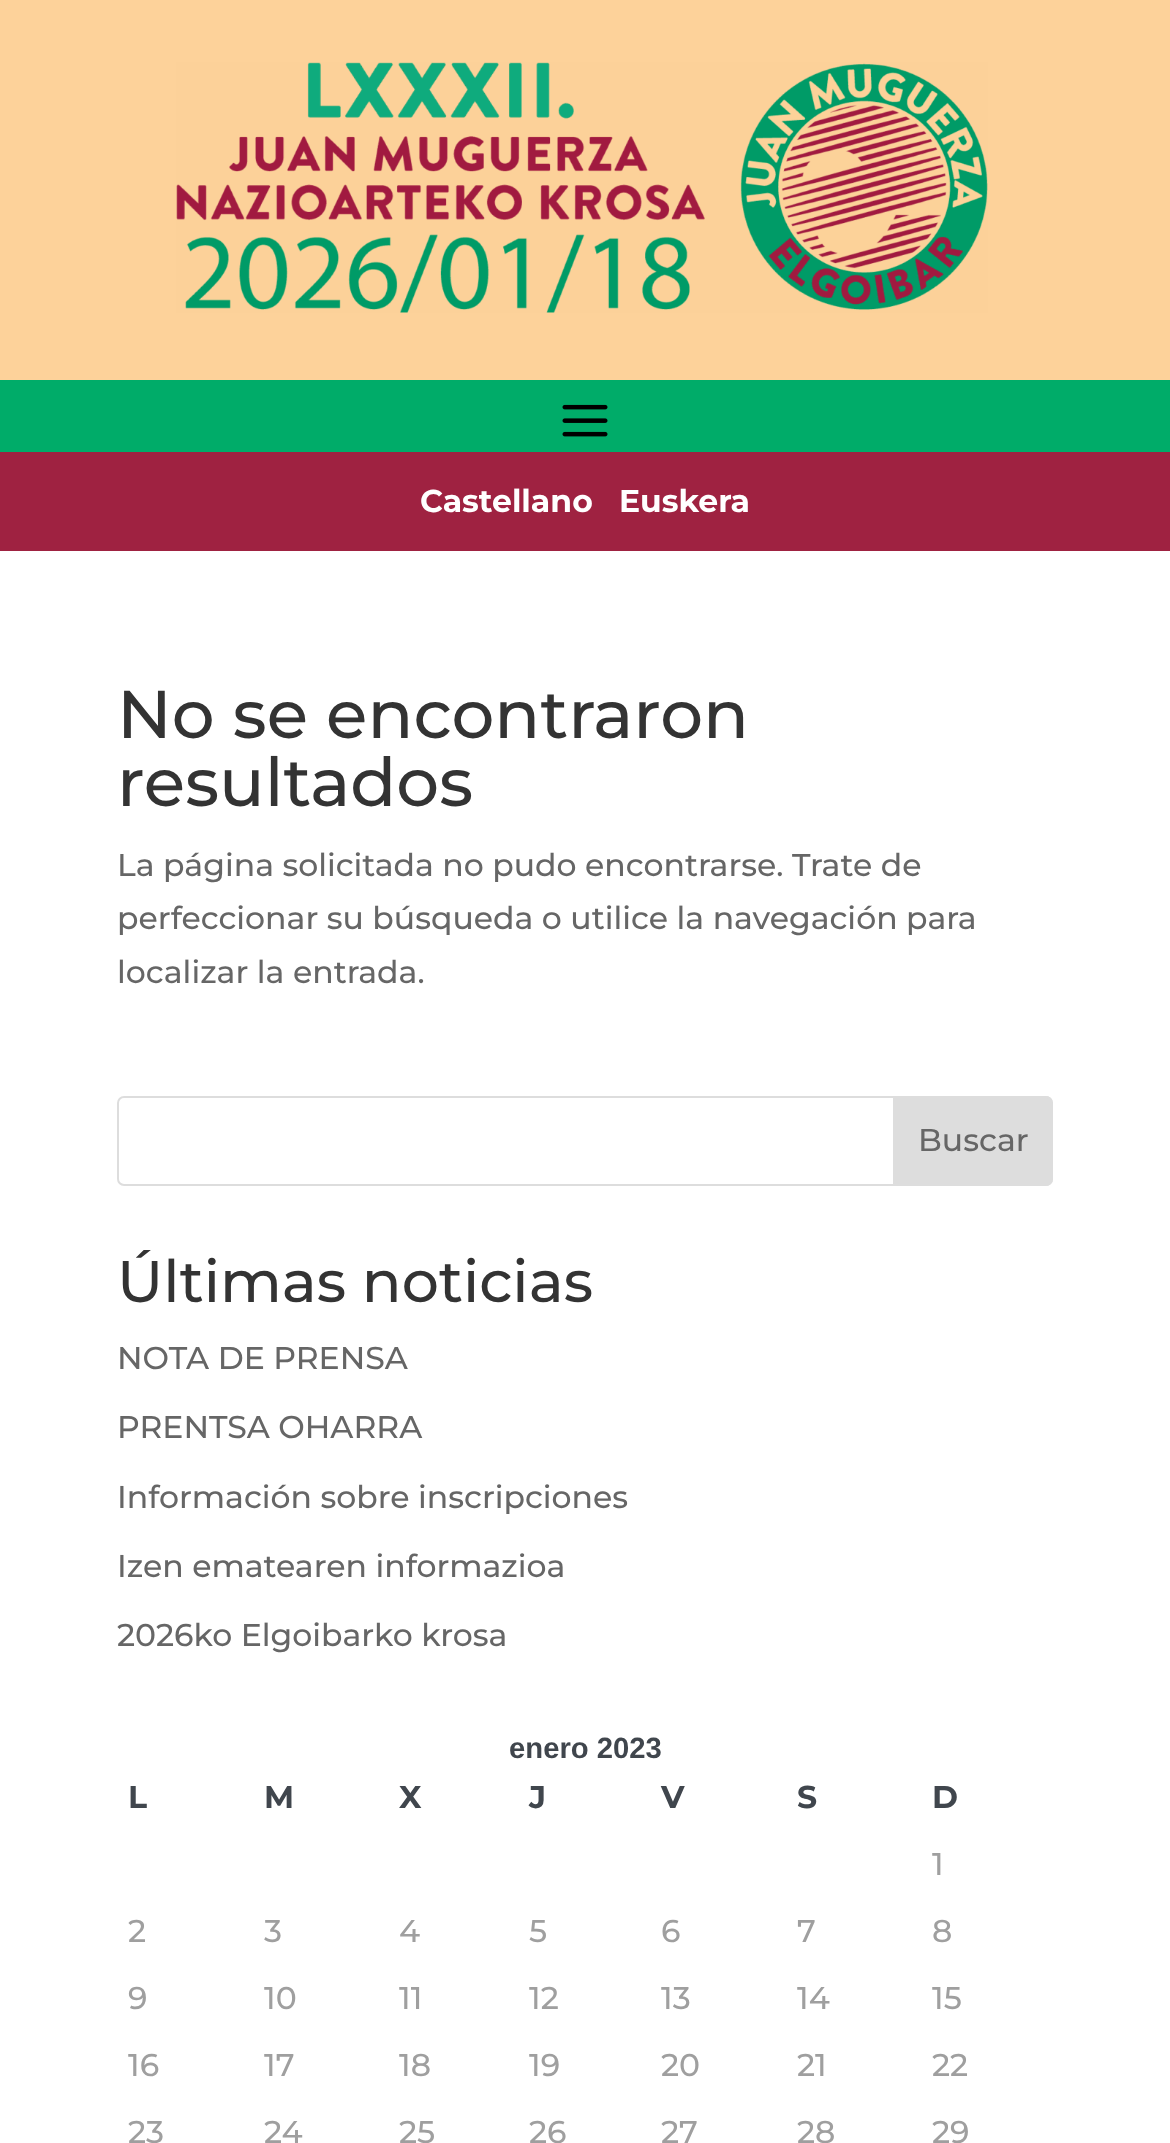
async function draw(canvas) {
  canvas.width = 1170
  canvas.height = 2143
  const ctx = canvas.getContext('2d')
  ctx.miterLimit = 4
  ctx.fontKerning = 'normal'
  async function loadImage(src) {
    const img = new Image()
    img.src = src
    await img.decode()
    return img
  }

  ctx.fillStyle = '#fff'
  ctx.fillRect(0, 0, 1170, 2143)
  ctx.fillStyle = '#fdd29a'
  ctx.fillRect(0, 0, 1170, 380)
  ctx.drawImage(await loadImage('image0.png'), 176, 62, 812, 251)
  ctx.fillStyle = '#00ac69'
  ctx.fillRect(0, 380, 1170, 72)
  ctx.drawImage(await loadImage('image1.png'), 562, 404, 46, 33)
  ctx.fillStyle = '#9f2241'
  ctx.fillRect(0, 452, 1170, 99)
  ctx.font = 'bold 31.5px Montserrat'
  ctx.fillStyle = '#fff'
  ctx.fillText('Castellano', 420, 512)
  ctx.fillText('Euskera', 619, 512)
  ctx.font = '500 67.5px Montserrat'
  ctx.fillStyle = '#333'
  ctx.fillText('No se encontraron', 117, 738)
  ctx.fillText('resultados', 117, 806)
  ctx.font = '500 31.5px Montserrat'
  ctx.fillStyle = '#666'
  ctx.fillText('La página solicitada no pudo encontrarse. Trate de', 117, 876)
  ctx.fillText('perfeccionar su búsqueda o utilice la navegación para', 117, 929)
  ctx.fillText('localizar la entrada.', 117, 983)
  ctx.beginPath()
  ctx.roundRect(118, 1097, 934, 88, 6)
  ctx.strokeStyle = '#ddd'
  ctx.lineWidth = 2
  ctx.stroke()
  ctx.fillStyle = '#ddd'
  ctx.beginPath()
  ctx.roundRect(894, 1097, 158, 88, [0, 6, 6, 0])
  ctx.fill()
  ctx.stroke()
  ctx.fillStyle = '#666'
  ctx.fillText('Buscar', 918, 1151)
  ctx.font = '500 58.5px Montserrat'
  ctx.fillStyle = '#333'
  ctx.fillText('Últimas noticias', 117, 1302)
  ctx.font = '500 31.5px Montserrat'
  ctx.fillStyle = '#666'
  ctx.fillText('NOTA DE PRENSA', 117, 1369)
  ctx.fillText('PRENTSA OHARRA', 117, 1438)
  ctx.fillText('Información sobre inscripciones', 117, 1508)
  ctx.fillText('Izen ematearen informazioa', 117, 1577)
  ctx.fillText('2026ko Elgoibarko krosa', 117, 1646)
  ctx.font = 'bold 29.25px Liberation Sans'
  ctx.fillStyle = '#40464d'
  ctx.fillText('enero 2023', 509, 1758)
  ctx.font = 'bold 31.5px Montserrat'
  ctx.fillText('L', 128, 1808)
  ctx.fillText('M', 264, 1808)
  ctx.fillText('X', 399, 1808)
  ctx.fillText('J', 529, 1808)
  ctx.fillText('V', 661, 1808)
  ctx.fillText('S', 797, 1808)
  ctx.fillText('D', 932, 1808)
  ctx.font = '500 31.5px Montserrat'
  ctx.fillStyle = '#9f9f9f'
  ctx.fillText('1', 932, 1875)
  ctx.fillText('2', 128, 1942)
  ctx.fillText('3', 264, 1942)
  ctx.fillText('4', 399, 1942)
  ctx.fillText('5', 529, 1942)
  ctx.fillText('6', 661, 1942)
  ctx.fillText('7', 797, 1942)
  ctx.fillText('8', 932, 1942)
  ctx.fillText('9', 128, 2009)
  ctx.fillText('10', 264, 2009)
  ctx.fillText('11', 399, 2009)
  ctx.fillText('12', 529, 2009)
  ctx.fillText('13', 661, 2009)
  ctx.fillText('14', 797, 2009)
  ctx.fillText('15', 932, 2009)
  ctx.fillText('16', 128, 2076)
  ctx.fillText('17', 264, 2076)
  ctx.fillText('18', 399, 2076)
  ctx.fillText('19', 529, 2076)
  ctx.fillText('20', 661, 2076)
  ctx.fillText('21', 797, 2076)
  ctx.fillText('22', 932, 2076)
  ctx.fillText('23', 128, 2143)
  ctx.fillText('24', 264, 2143)
  ctx.fillText('25', 399, 2143)
  ctx.fillText('26', 529, 2143)
  ctx.fillText('27', 661, 2143)
  ctx.fillText('28', 797, 2143)
  ctx.fillText('29', 932, 2143)
}

draw(document.querySelector('canvas'))
